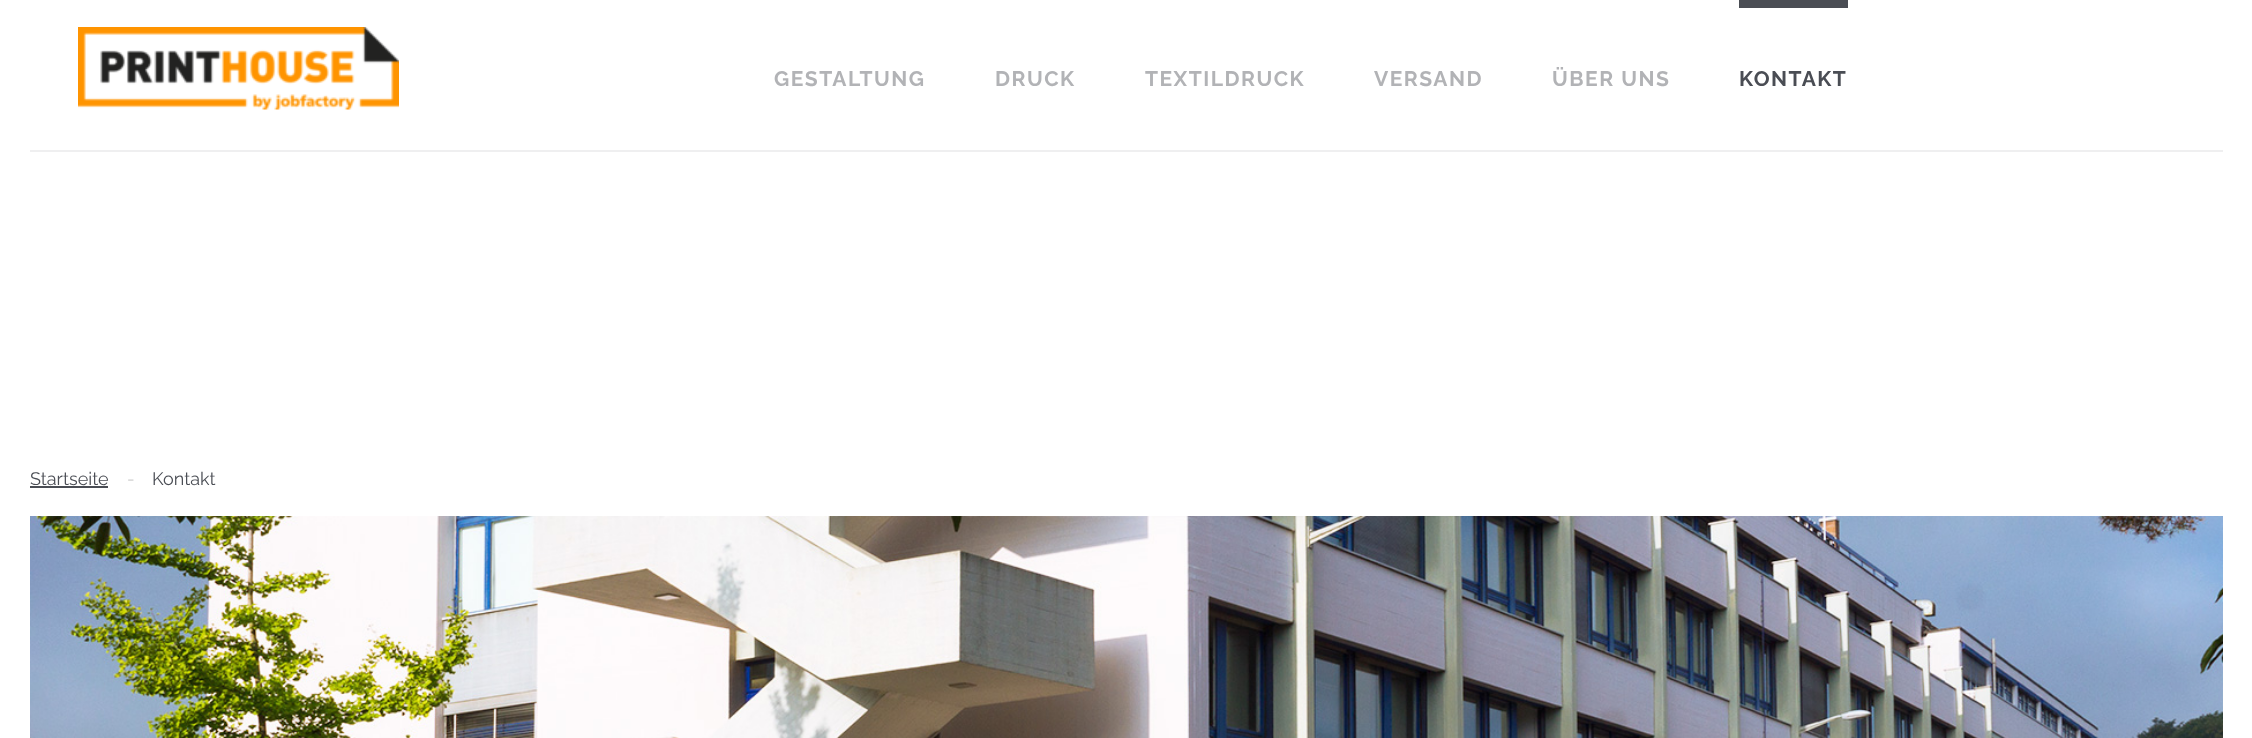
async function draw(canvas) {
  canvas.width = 2252
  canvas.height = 738
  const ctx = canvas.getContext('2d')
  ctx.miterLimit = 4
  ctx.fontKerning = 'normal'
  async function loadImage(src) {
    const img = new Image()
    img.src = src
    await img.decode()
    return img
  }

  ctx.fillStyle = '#fff'
  ctx.fillRect(0, 0, 2252, 738)
  ctx.fillStyle = '#efeff0'
  ctx.fillRect(30, 150, 2193, 2)
  ctx.drawImage(await loadImage('image0.png'), 78, 27, 321, 83)
  ctx.letterSpacing = '1.5px'
  ctx.font = 'bold 21px Raleway'
  ctx.fillStyle = '#b2b3b6'
  ctx.fillText('GESTALTUNG', 774, 86)
  ctx.fillText('DRUCK', 995, 86)
  ctx.fillText('TEXTILDRUCK', 1145, 86)
  ctx.fillText('VERSAND', 1374, 86)
  ctx.fillText('ÜBER UNS', 1552, 86)
  ctx.fillStyle = '#4a4d54'
  ctx.fillRect(1739, 0, 109, 8)
  ctx.fillText('KONTAKT', 1739, 86)
  ctx.letterSpacing = '0px'
  ctx.font = '18px Raleway'
  ctx.fillText('Startseite', 30, 485)
  ctx.fillRect(30, 486, 78, 2)
  ctx.fillStyle = '#ccc'
  ctx.fillText('-', 127, 485)
  ctx.fillStyle = '#4a4d54'
  ctx.fillText('Kontakt', 152, 485)
  ctx.drawImage(await loadImage('image1.png'), 30, 516, 2193, 222)
}

draw(document.querySelector('canvas'))
